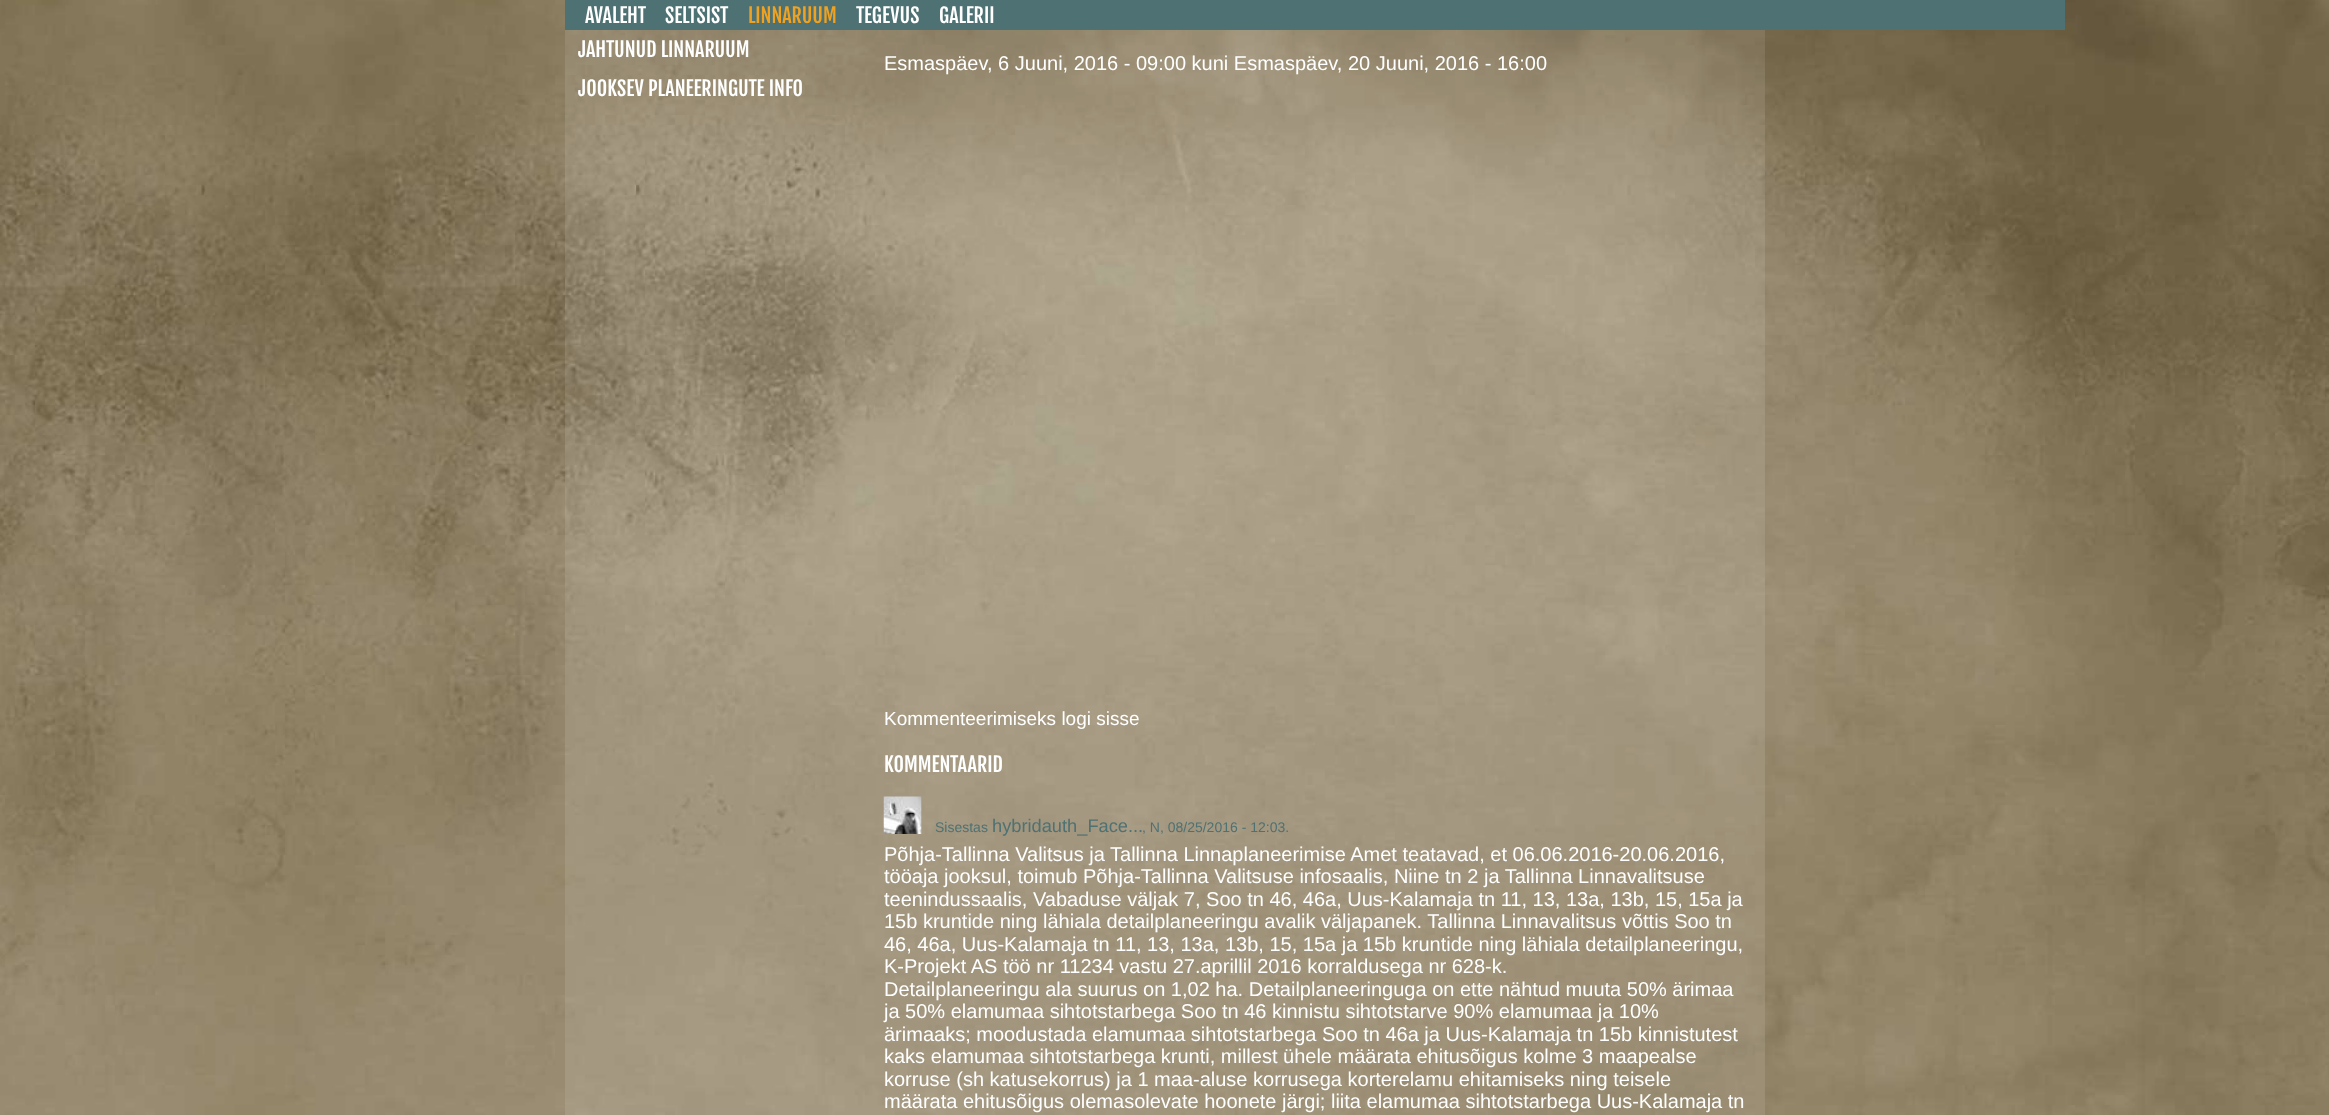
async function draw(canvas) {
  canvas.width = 2329
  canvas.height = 1115
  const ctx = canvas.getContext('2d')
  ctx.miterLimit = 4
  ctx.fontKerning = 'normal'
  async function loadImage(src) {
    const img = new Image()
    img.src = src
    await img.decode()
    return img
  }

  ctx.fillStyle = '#fff'
  ctx.fillRect(0, 0, 2329, 1115)
  ctx.drawImage(await loadImage('image0.png'), 0, 0, 2329, 1115)
  ctx.fillStyle = '#4e7173'
  ctx.fillRect(565, 0, 1500, 30)
  ctx.font = '20px Fjalla One'
  ctx.fillStyle = '#fff'
  ctx.fillText('AVALEHT', 585, 23)
  ctx.fillText('SELTSIST', 665, 23)
  ctx.fillStyle = '#efa222'
  ctx.fillText('LINNARUUM', 748, 23)
  ctx.fillStyle = '#fff'
  ctx.fillText('TEGEVUS', 856, 23)
  ctx.fillText('GALERII', 939, 23)
  ctx.fillStyle = '#ffffff1a'
  ctx.fillRect(565, 30, 1200, 1085)
  ctx.fillStyle = '#fff'
  ctx.fillText('JAHTUNUD LINNARUUM', 578, 57)
  ctx.fillText('JOOKSEV PLANEERINGUTE INFO', 578, 96)
  ctx.font = '20px Liberation Sans'
  ctx.fillText('Esmaspäev, 6 Juuni, 2016 - 09:00 kuni Esmaspäev, 20 Juuni, 2016 - 16:00', 884, 70)
  ctx.font = '19px Liberation Sans'
  ctx.fillText('Kommenteerimiseks logi sisse', 884, 725)
  ctx.font = '20px Fjalla One'
  ctx.fillText('KOMMENTAARID', 884, 772)
  ctx.drawImage(await loadImage('image1.png'), 883, 796, 39, 38)
  ctx.font = '14px Liberation Sans'
  ctx.fillStyle = '#4e7173'
  ctx.fillText('Sisestas', 935, 832)
  ctx.font = '18.25px Liberation Sans'
  ctx.fillText('hybridauth_Face...', 992, 832)
  ctx.font = '14px Liberation Sans'
  ctx.fillText(', N, 08/25/2016 - 12:03.', 1142, 832)
  ctx.font = '20px Liberation Sans'
  ctx.fillStyle = '#fff'
  ctx.fillText('Põhja-Tallinna Valitsus ja Tallinna Linnaplaneerimise Amet teatavad, et 06.06.2016-20.06.2016,', 884, 861)
  ctx.fillText('tööaja jooksul, toimub Põhja-Tallinna Valitsuse infosaalis, Niine tn 2 ja Tallinna Linnavalitsuse', 884, 883)
  ctx.fillText('teenindussaalis, Vabaduse väljak 7, Soo tn 46, 46a, Uus-Kalamaja tn 11, 13, 13a, 13b, 15, 15a ja', 884, 906)
  ctx.fillText('15b kruntide ning lähiala detailplaneeringu avalik väljapanek. Tallinna Linnavalitsus võttis Soo tn', 884, 928)
  ctx.fillText('46, 46a, Uus-Kalamaja tn 11, 13, 13a, 13b, 15, 15a ja 15b kruntide ning lähiala detailplaneeringu,', 884, 951)
  ctx.fillText('K-Projekt AS töö nr 11234 vastu 27.aprillil 2016 korraldusega nr 628-k.', 884, 973)
  ctx.fillText('Detailplaneeringu ala suurus on 1,02 ha. Detailplaneeringuga on ette nähtud muuta 50% ärimaa', 884, 996)
  ctx.fillText('ja 50% elamumaa sihtotstarbega Soo tn 46 kinnistu sihtotstarve 90% elamumaa ja 10%', 884, 1018)
  ctx.fillText('ärimaaks; moodustada elamumaa sihtotstarbega Soo tn 46a ja Uus-Kalamaja tn 15b kinnistutest', 884, 1041)
  ctx.fillText('kaks elamumaa sihtotstarbega krunti, millest ühele määrata ehitusõigus kolme 3 maapealse', 884, 1063)
  ctx.fillText('korruse (sh katusekorrus) ja 1 maa-aluse korrusega korterelamu ehitamiseks ning teisele', 884, 1086)
  ctx.fillText('määrata ehitusõigus olemasolevate hoonete järgi; liita elamumaa sihtotstarbega Uus-Kalamaja tn', 884, 1108)
}

draw(document.querySelector('canvas'))
